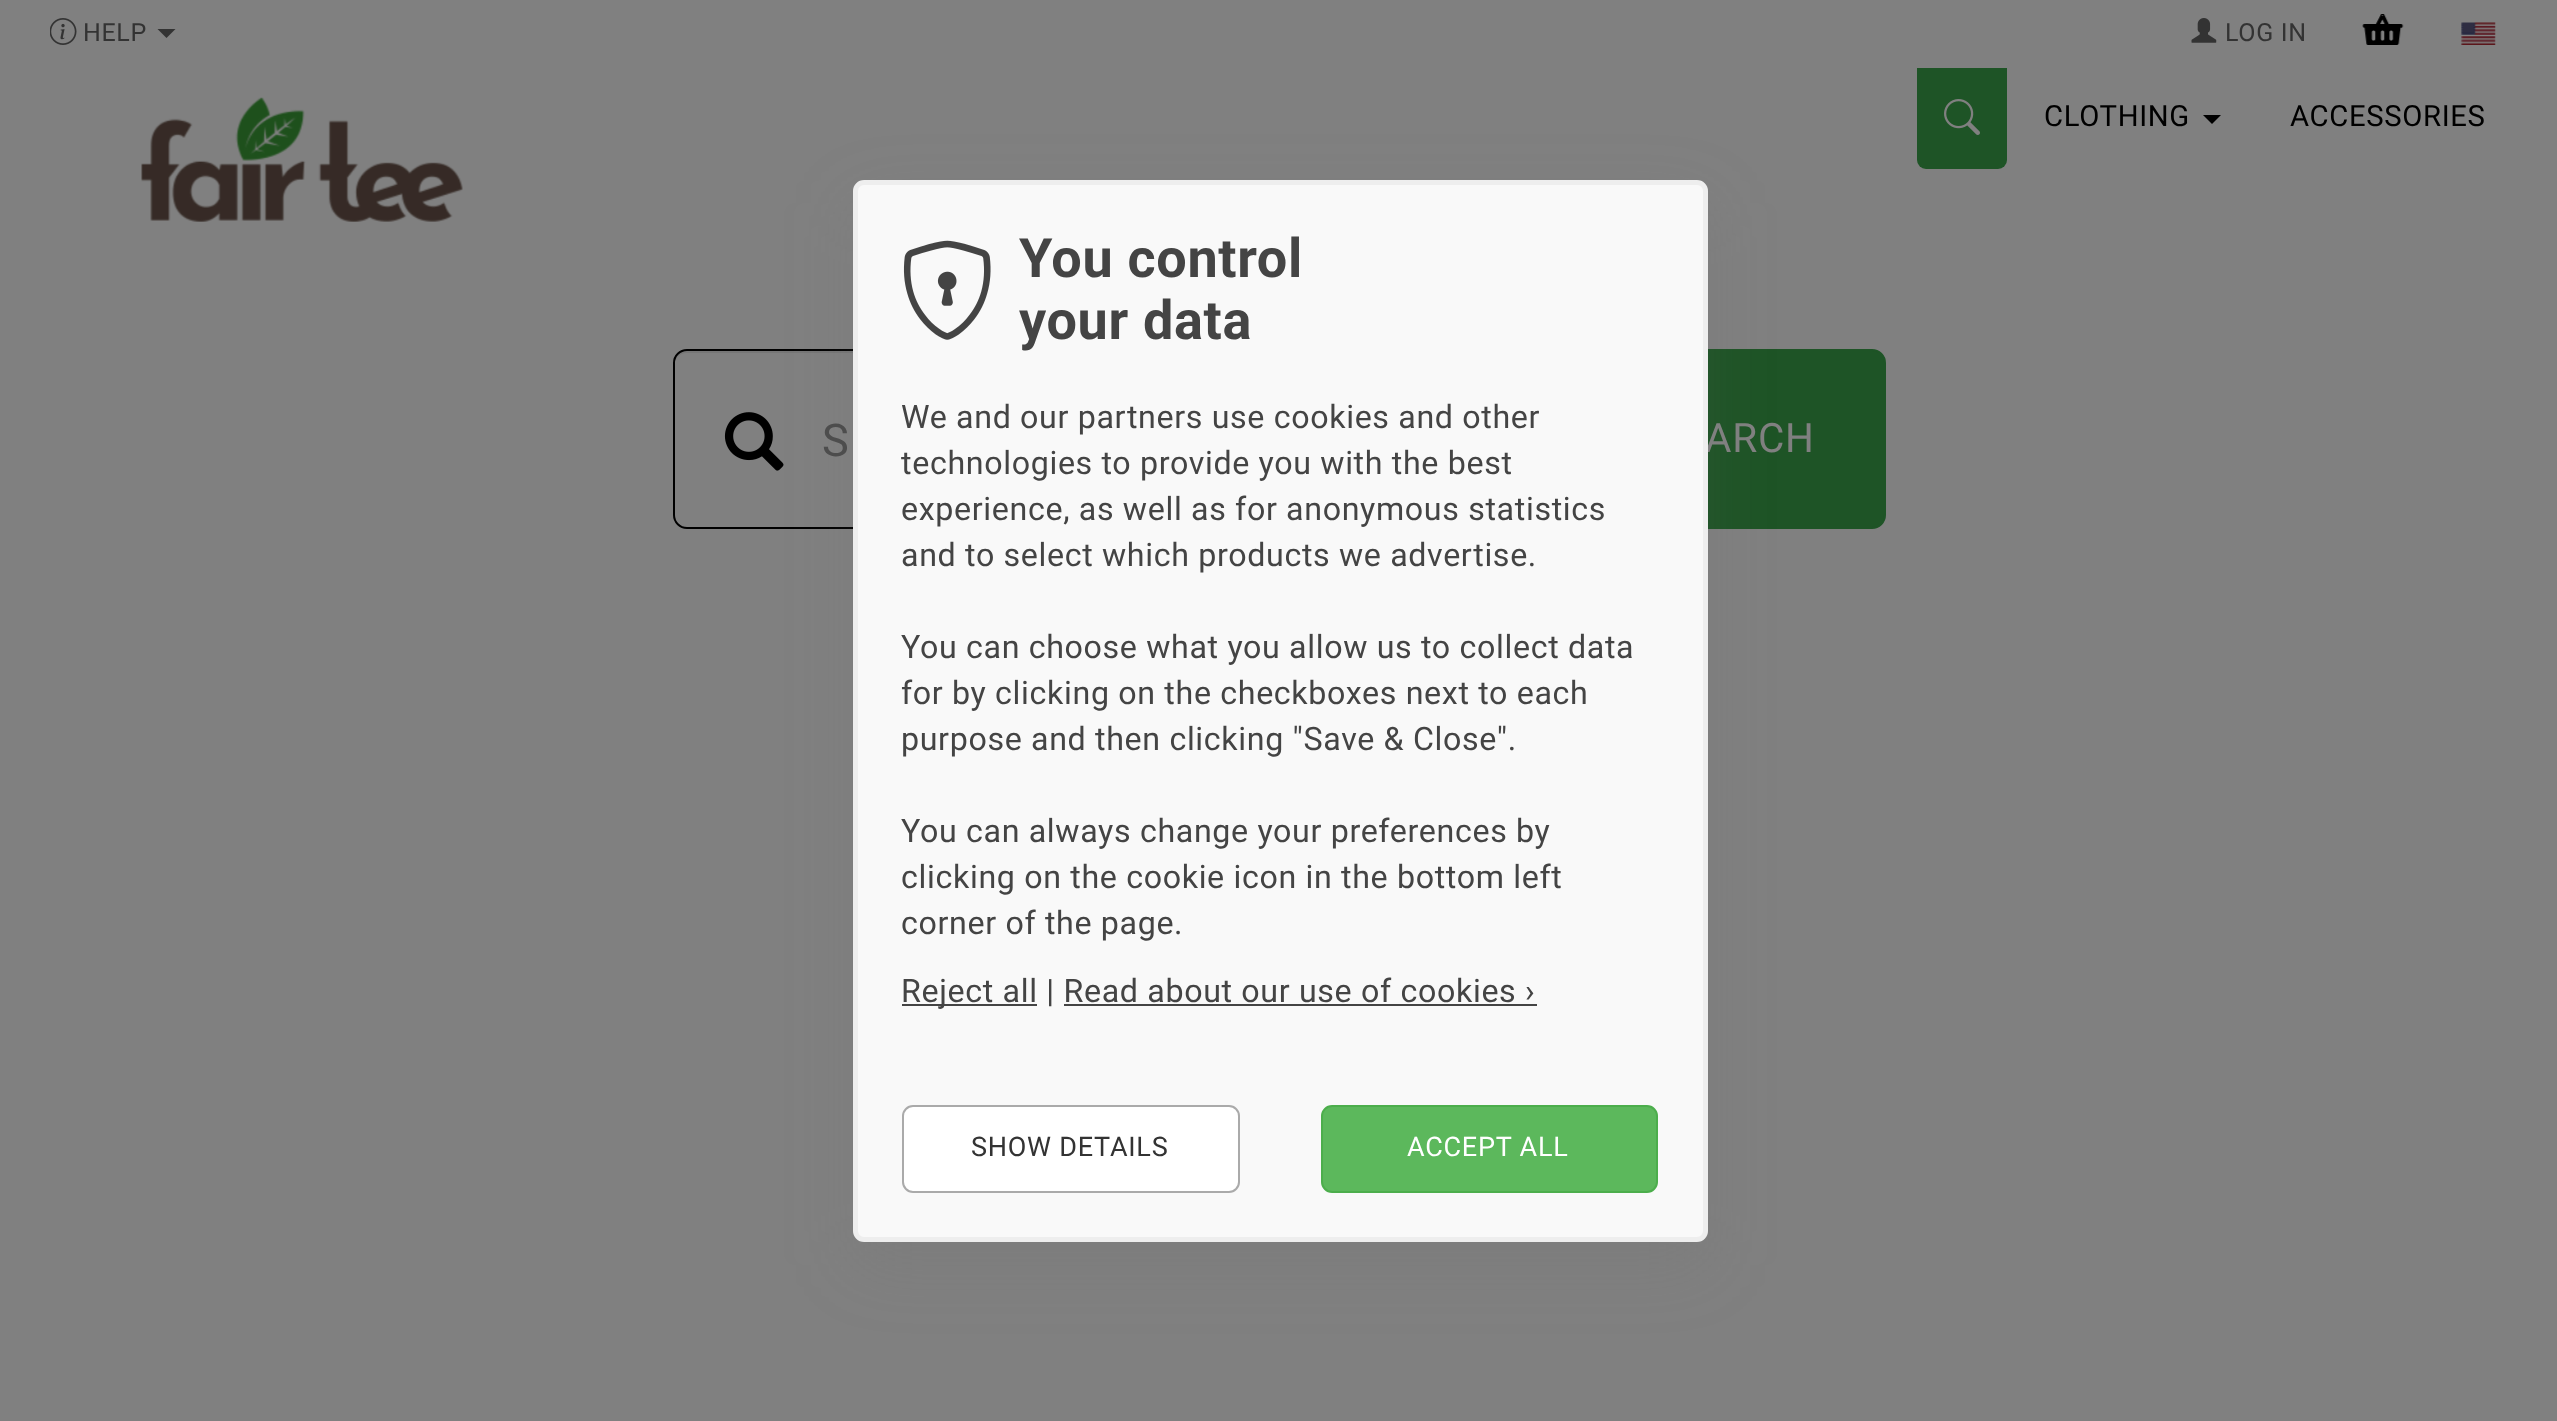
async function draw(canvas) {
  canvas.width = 2557
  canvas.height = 1421
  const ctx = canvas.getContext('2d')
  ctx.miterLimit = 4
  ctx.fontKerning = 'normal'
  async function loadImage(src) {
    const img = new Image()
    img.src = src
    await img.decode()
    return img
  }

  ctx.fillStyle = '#808080'
  ctx.fillRect(0, 0, 2557, 1421)
  ctx.drawImage(await loadImage('image0.png'), 50, 18, 27, 27)
  ctx.letterSpacing = '0.65px'
  ctx.font = '25px Roboto'
  ctx.fillStyle = '#333'
  ctx.fillText('HELP', 83, 41)
  ctx.beginPath()
  ctx.moveTo(157.5, 29)
  ctx.lineTo(175.5, 29)
  ctx.lineTo(166.5, 38)
  ctx.closePath()
  ctx.fill()
  ctx.drawImage(await loadImage('image1.png'), 2191, 18, 26, 25)
  ctx.fillText('LOG IN', 2225, 41)
  ctx.drawImage(await loadImage('image2.png'), 2362, 14, 42, 31)
  ctx.drawImage(await loadImage('image3.png'), 2461, 22, 35, 23)
  ctx.drawImage(await loadImage('image4.png'), 141, 97, 322, 125)
  ctx.fillStyle = '#1e5426'
  ctx.beginPath()
  ctx.roundRect(1917, 68, 90, 101, [0, 0, 9, 9])
  ctx.fill()
  ctx.drawImage(await loadImage('image5.png'), 1944, 99, 36, 36)
  ctx.font = '29.25px Roboto'
  ctx.fillStyle = '#000'
  ctx.fillText('CLOTHING', 2044, 126)
  ctx.beginPath()
  ctx.moveTo(2203, 115)
  ctx.lineTo(2221, 115)
  ctx.lineTo(2212, 124)
  ctx.closePath()
  ctx.fill()
  ctx.fillText('ACCESSORIES', 2290, 126)
  ctx.fillStyle = '#767676'
  ctx.beginPath()
  ctx.moveTo(686, 353)
  ctx.lineTo(1586, 353)
  ctx.lineTo(1586, 351)
  ctx.lineTo(686, 351)
  ctx.bezierCurveTo(679, 351, 675, 357, 675, 364)
  ctx.bezierCurveTo(675, 358, 680, 353, 686, 353)
  ctx.closePath()
  ctx.fill()
  ctx.beginPath()
  ctx.roundRect(674, 350, 914, 178, [13, 0, 0, 13])
  ctx.strokeStyle = '#000'
  ctx.lineWidth = 2
  ctx.stroke()
  ctx.drawImage(await loadImage('image7.png'), 724, 412, 60, 59)
  ctx.fillStyle = '#1e5426'
  ctx.beginPath()
  ctx.roundRect(1587, 350, 298, 178, [0, 13, 13, 0])
  ctx.fill()
  ctx.strokeStyle = '#1e5426'
  ctx.stroke()
  ctx.fillStyle = '#64646426'
  ctx.filter = 'blur(34px)'
  ctx.beginPath()
  ctx.roundRect(853, 203, 855, 1062, 11)
  ctx.fill()
  ctx.filter = 'none'
  ctx.letterSpacing = '0.75px'
  ctx.font = '40.5px Roboto'
  ctx.fillStyle = '#808080'
  ctx.fillText('ARCH', 1705, 452)
  ctx.fillStyle = '#f9f9f9'
  ctx.beginPath()
  ctx.roundRect(855.5, 182.5, 850, 1057, 8.5)
  ctx.fill()
  ctx.strokeStyle = '#eee'
  ctx.lineWidth = 5
  ctx.stroke()
  ctx.drawImage(await loadImage('image6.png'), 903, 240, 88, 100)
  ctx.letterSpacing = '0.65px'
  ctx.font = 'bold 54px Roboto'
  ctx.fillStyle = '#444'
  ctx.fillText('You control', 1019, 277)
  ctx.fillText('your data', 1019, 339)
  ctx.font = '32.2px Roboto'
  ctx.fillText('We and our partners use cookies and other', 901, 428)
  ctx.fillText('technologies to provide you with the best', 901, 474)
  ctx.fillText('experience, as well as for anonymous statistics', 901, 520)
  ctx.fillText('and to select which products we advertise.', 901, 566)
  ctx.fillText('You can choose what you allow us to collect data', 901, 658)
  ctx.fillText('for by clicking on the checkboxes next to each', 901, 704)
  ctx.fillText('purpose and then clicking "Save & Close".', 901, 750)
  ctx.fillText('You can always change your preferences by', 901, 842)
  ctx.fillText('clicking on the cookie icon in the bottom left', 901, 888)
  ctx.fillText('corner of the page.', 901, 934)
  ctx.fillRect(902, 1004, 135, 2)
  ctx.fillText('Reject all | Read about our use of cookies ›', 901, 1002)
  ctx.fillRect(1064, 1004, 473, 2)
  ctx.fillStyle = '#fff'
  ctx.beginPath()
  ctx.roundRect(903, 1106, 336, 86, 10)
  ctx.fill()
  ctx.strokeStyle = '#aaa'
  ctx.lineWidth = 2
  ctx.stroke()
  ctx.letterSpacing = '0.75px'
  ctx.font = '27px Roboto'
  ctx.fillStyle = '#333'
  ctx.fillText('SHOW DETAILS', 971, 1156)
  ctx.fillStyle = '#5cb85c'
  ctx.beginPath()
  ctx.roundRect(1322, 1106, 335, 86, 10)
  ctx.fill()
  ctx.strokeStyle = '#4cae4c'
  ctx.stroke()
  ctx.fillStyle = '#fff'
  ctx.fillText('ACCEPT ALL', 1407, 1156)
  ctx.letterSpacing = '0.65px'
  ctx.font = '45px Roboto'
  ctx.fillStyle = '#4d4d4d'
  ctx.fillText('S', 822, 456)
}

draw(document.querySelector('canvas'))
